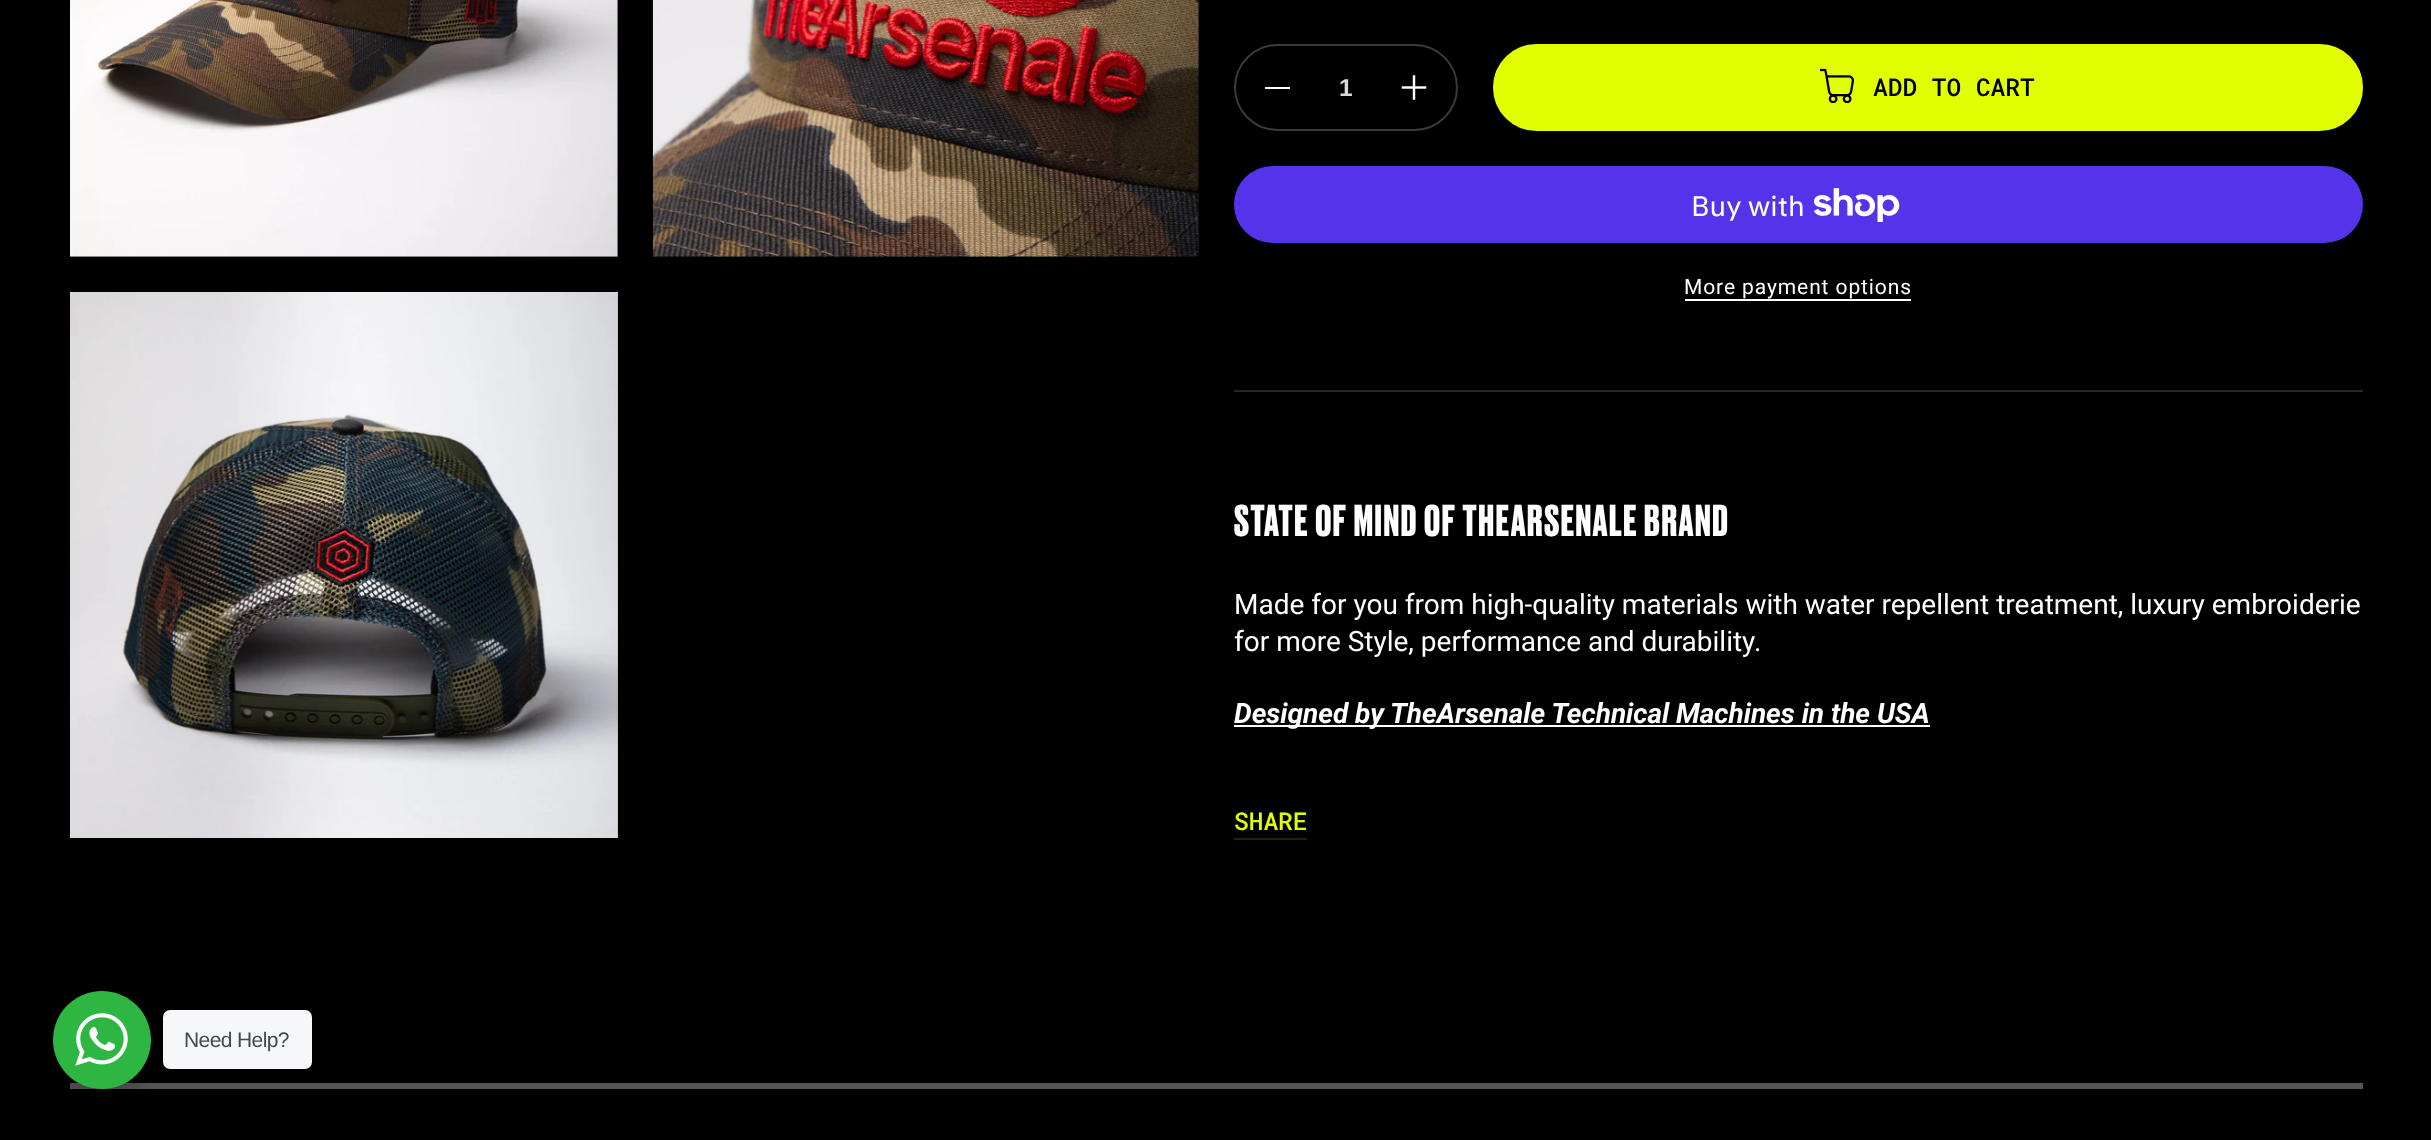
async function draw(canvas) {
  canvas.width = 2431
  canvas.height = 1140
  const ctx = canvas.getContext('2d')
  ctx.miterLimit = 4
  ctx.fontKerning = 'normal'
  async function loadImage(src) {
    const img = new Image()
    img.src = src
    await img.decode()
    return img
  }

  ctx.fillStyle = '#000'
  ctx.fillRect(0, 0, 2431, 1140)
  ctx.drawImage(await loadImage('image0.png'), 70, 0, 548, 257)
  ctx.drawImage(await loadImage('image1.png'), 652, 0, 547, 257)
  ctx.drawImage(await loadImage('image2.png'), 70, 292, 548, 546)
  ctx.beginPath()
  ctx.roundRect(1235, 45, 222, 85, 42.5)
  ctx.strokeStyle = '#3a3a3a'
  ctx.lineWidth = 2
  ctx.stroke()
  ctx.fillStyle = '#fff'
  ctx.fillRect(1265, 87, 25, 2)
  ctx.font = 'bold 24.5px Liberation Sans'
  ctx.fillStyle = '#d9d9d9'
  ctx.fillText('1', 1339, 96)
  ctx.drawImage(await loadImage('image3.png'), 1401, 75, 26, 25)
  ctx.fillStyle = '#e1ff00'
  ctx.beginPath()
  ctx.roundRect(1494, 45, 868, 85, 42.5)
  ctx.fill()
  ctx.strokeStyle = '#e1ff00'
  ctx.stroke()
  ctx.drawImage(await loadImage('image4.png'), 1820, 68, 35, 35)
  ctx.font = '500 24.5px Roboto Mono'
  ctx.fillStyle = '#000'
  ctx.fillText('ADD TO CART', 1873, 96)
  ctx.fillStyle = '#5433eb'
  ctx.beginPath()
  ctx.roundRect(1234, 166, 1129, 77, 38.5)
  ctx.fill()
  ctx.font = '28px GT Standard'
  ctx.fillStyle = '#fff'
  ctx.fillText('Buy with', 1691, 216)
  ctx.drawImage(await loadImage('image5.png'), 1814, 188, 86, 34)
  ctx.letterSpacing = '0.9px'
  ctx.font = '21px Roboto'
  ctx.fillText('More payment options', 1684, 294)
  ctx.fillRect(1685, 299, 226, 2)
  ctx.fillStyle = '#262626'
  ctx.fillRect(1234, 390, 1129, 2)
  ctx.letterSpacing = '1.7px'
  ctx.font = 'bold 42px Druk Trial'
  ctx.fillStyle = '#fff'
  ctx.fillText('STATE OF MIND OF THEARSENALE BRAND', 1234, 536)
  ctx.letterSpacing = '0px'
  ctx.font = '28px Roboto'
  ctx.fillText('Made for you from high-quality materials with water repellent treatment, luxury embroiderie', 1234, 614)
  ctx.fillText('for more Style, performance and durability.', 1234, 651)
  ctx.fillRect(1234, 725, 696, 2)
  ctx.font = 'italic bold 28px Roboto'
  ctx.fillText('Designed by TheArsenale Technical Machines in the USA', 1234, 723)
  ctx.font = '500 24.5px Roboto Mono'
  ctx.fillStyle = '#e1ff00'
  ctx.fillText('SHARE', 1234, 830)
  ctx.fillStyle = '#222600'
  ctx.fillRect(1234, 838, 73, 2)
  ctx.fillStyle = '#555'
  ctx.fillRect(70, 1083, 2293, 6)
  ctx.fillStyle = '#00000024'
  ctx.filter = 'blur(7px)'
  ctx.beginPath()
  ctx.roundRect(49, 998, 105, 105, 52.5)
  ctx.fill()
  ctx.filter = 'none'
  ctx.fillStyle = '#2db742'
  ctx.beginPath()
  ctx.arc(102, 1040, 49, 0, 2 * Math.PI)
  ctx.fill()
  ctx.drawImage(await loadImage('image6.png'), 75, 1013, 53, 53)
  ctx.fillStyle = '#f5f7f9'
  ctx.beginPath()
  ctx.roundRect(163, 1010, 149, 59, 7)
  ctx.fill()
  ctx.letterSpacing = '-0.6px'
  ctx.font = '21px Liberation Sans'
  ctx.fillStyle = '#43474e'
  ctx.fillText('Need Help?', 184, 1047)
}

draw(document.querySelector('canvas'))
